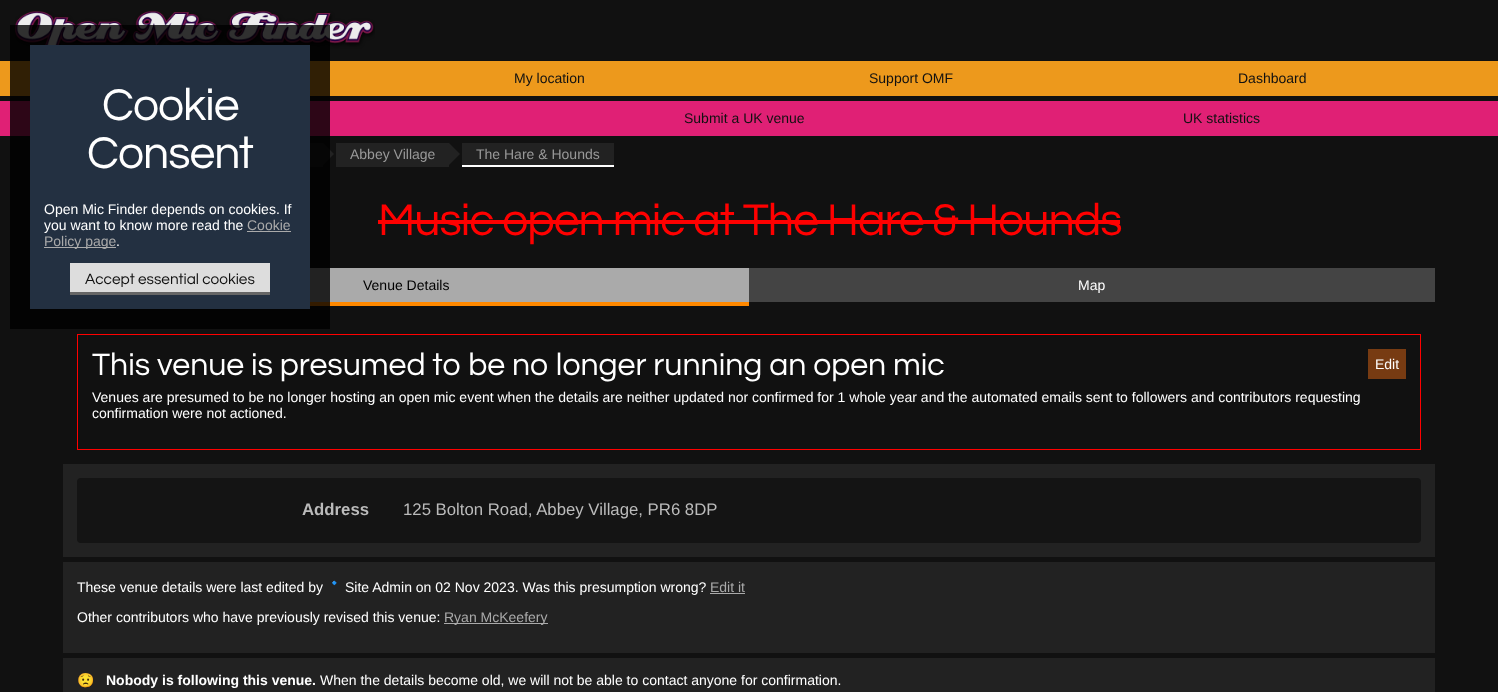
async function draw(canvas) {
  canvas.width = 1498
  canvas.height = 692
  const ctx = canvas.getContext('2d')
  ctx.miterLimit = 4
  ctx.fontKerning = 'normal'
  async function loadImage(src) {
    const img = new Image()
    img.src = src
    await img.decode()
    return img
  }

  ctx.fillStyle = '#111'
  ctx.fillRect(0, 0, 1498, 692)
  ctx.drawImage(await loadImage('image0.png'), 15, 10, 360, 39)
  ctx.fillStyle = '#ed991c'
  ctx.fillRect(0, 61, 1498, 35)
  ctx.font = '14px Liberation Sans'
  ctx.fillStyle = '#111'
  ctx.fillText('My location', 514, 83)
  ctx.fillText('Support OMF', 869, 83)
  ctx.fillText('Dashboard', 1238, 83)
  ctx.fillStyle = '#e02075'
  ctx.fillRect(0, 101, 1498, 35)
  ctx.fillStyle = '#222'
  ctx.fillRect(310, 143, 13, 24)
  ctx.beginPath()
  ctx.moveTo(323, 165)
  ctx.lineTo(323, 143)
  ctx.lineTo(334, 154)
  ctx.closePath()
  ctx.fill()
  ctx.fillStyle = '#aaa'
  ctx.fillRect(310, 268, 439, 34)
  ctx.fillStyle = '#f80'
  ctx.fillRect(310, 302, 439, 4)
  ctx.strokeStyle = '#000000cc'
  ctx.lineWidth = 20
  ctx.strokeRect(20, 35, 300, 284)
  ctx.fillStyle = '#233041'
  ctx.fillRect(30, 45, 280, 264)
  ctx.letterSpacing = '-1px'
  ctx.font = '46.25px Questrial'
  ctx.fillStyle = '#fff'
  ctx.fillText('Cookie', 102, 120)
  ctx.fillText('Consent', 87, 168)
  ctx.letterSpacing = '0px'
  ctx.font = '14px Liberation Sans'
  ctx.fillText('Open Mic Finder depends on cookies. If', 44, 214)
  ctx.fillText('you want to know more read the', 44, 230)
  ctx.fillStyle = '#aaa'
  ctx.fillText('Cookie', 247, 230)
  ctx.fillRect(247, 231, 44, 1)
  ctx.fillRect(44, 247, 72, 1)
  ctx.fillText('Policy page', 44, 246)
  ctx.fillStyle = '#fff'
  ctx.fillText('.', 116, 246)
  ctx.fillStyle = '#ddd'
  ctx.fillRect(70, 263, 200, 29)
  ctx.fillStyle = '#666'
  ctx.fillRect(70, 292, 200, 3)
  ctx.font = '15.4px Questrial'
  ctx.fillStyle = '#111'
  ctx.fillText('Accept essential cookies', 85, 284)
  ctx.font = '14px Liberation Sans'
  ctx.fillText('Submit a UK venue', 684, 123)
  ctx.fillText('UK statistics', 1183, 123)
  ctx.fillStyle = '#222'
  ctx.fillRect(336, 143, 113, 24)
  ctx.fillStyle = '#999'
  ctx.fillText('Abbey Village', 350, 159)
  ctx.fillStyle = '#222'
  ctx.beginPath()
  ctx.moveTo(449, 165)
  ctx.lineTo(449, 143)
  ctx.lineTo(460, 154)
  ctx.closePath()
  ctx.fill()
  ctx.fillRect(462, 143, 152, 22)
  ctx.fillStyle = '#fff'
  ctx.fillRect(462, 165, 152, 2)
  ctx.fillStyle = '#999'
  ctx.fillText('The Hare & Hounds', 476, 159)
  ctx.letterSpacing = '-1px'
  ctx.font = '46.25px Questrial'
  ctx.fillStyle = '#f00'
  ctx.fillText('Music open mic at The Hare & Hounds', 378, 235)
  ctx.fillRect(378, 220, 742, 4)
  ctx.letterSpacing = '0px'
  ctx.font = '14px Liberation Sans'
  ctx.fillStyle = '#000'
  ctx.fillText('Venue Details', 363, 290)
  ctx.fillStyle = '#444'
  ctx.fillRect(749, 268, 686, 34)
  ctx.fillStyle = '#fff'
  ctx.fillText('Map', 1078, 290)
  ctx.strokeStyle = '#f00'
  ctx.lineWidth = 1
  ctx.strokeRect(77.5, 334.5, 1343, 115)
  ctx.font = '32px Questrial'
  ctx.fillText('This venue is presumed to be no longer running an open mic', 92, 375)
  ctx.fillStyle = '#773b12'
  ctx.fillRect(1368, 349, 38, 30)
  ctx.font = '14px Liberation Sans'
  ctx.fillStyle = '#fff'
  ctx.fillText('Edit', 1375, 369)
  ctx.fillText('Venues are presumed to be no longer hosting an open mic event when the details are neither updated nor confirmed for 1 whole year and the automated emails sent to followers and contributors requesting', 92, 402)
  ctx.fillText('confirmation were not actioned.', 92, 418)
  ctx.fillStyle = '#222'
  ctx.fillRect(63, 464, 1372, 93)
  ctx.fillStyle = '#141414'
  ctx.beginPath()
  ctx.roundRect(77, 478, 1344, 65, 4)
  ctx.fill()
  ctx.font = 'bold 16.75px Liberation Sans'
  ctx.fillStyle = '#bbb'
  ctx.fillText('Address', 302, 515)
  ctx.font = '16.75px Liberation Sans'
  ctx.fillText('125 Bolton Road, Abbey Village, PR6 8DP', 403, 515)
  ctx.fillStyle = '#222'
  ctx.fillRect(63, 562, 1372, 91)
  ctx.font = '14px Liberation Sans'
  ctx.fillStyle = '#fff'
  ctx.fillText('These venue details were last edited by', 77, 592)
  ctx.font = '12px Noto Color Emoji'
  ctx.fillText('🔹', 327, 587)
  ctx.font = '14px Liberation Sans'
  ctx.fillText('Site Admin on 02 Nov 2023. Was this presumption wrong?', 345, 592)
  ctx.fillStyle = '#aaa'
  ctx.fillText('Edit it', 710, 592)
  ctx.fillRect(710, 593, 35, 1)
  ctx.fillStyle = '#fff'
  ctx.fillText('Other contributors who have previously revised this venue:', 77, 622)
  ctx.fillStyle = '#aaa'
  ctx.fillRect(444, 623, 104, 1)
  ctx.fillText('Ryan McKeefery', 444, 622)
  ctx.fillStyle = '#222'
  ctx.fillRect(63, 658, 1372, 34)
  ctx.font = '14px Noto Color Emoji'
  ctx.fillStyle = '#fff'
  ctx.fillText('😟', 77, 685)
  ctx.font = 'bold 14px Liberation Sans'
  ctx.fillText('Nobody is following this venue.', 106, 685)
  ctx.font = '14px Liberation Sans'
  ctx.fillText('When the details become old, we will not be able to contact anyone for confirmation.', 320, 685)
}

draw(document.querySelector('canvas'))
